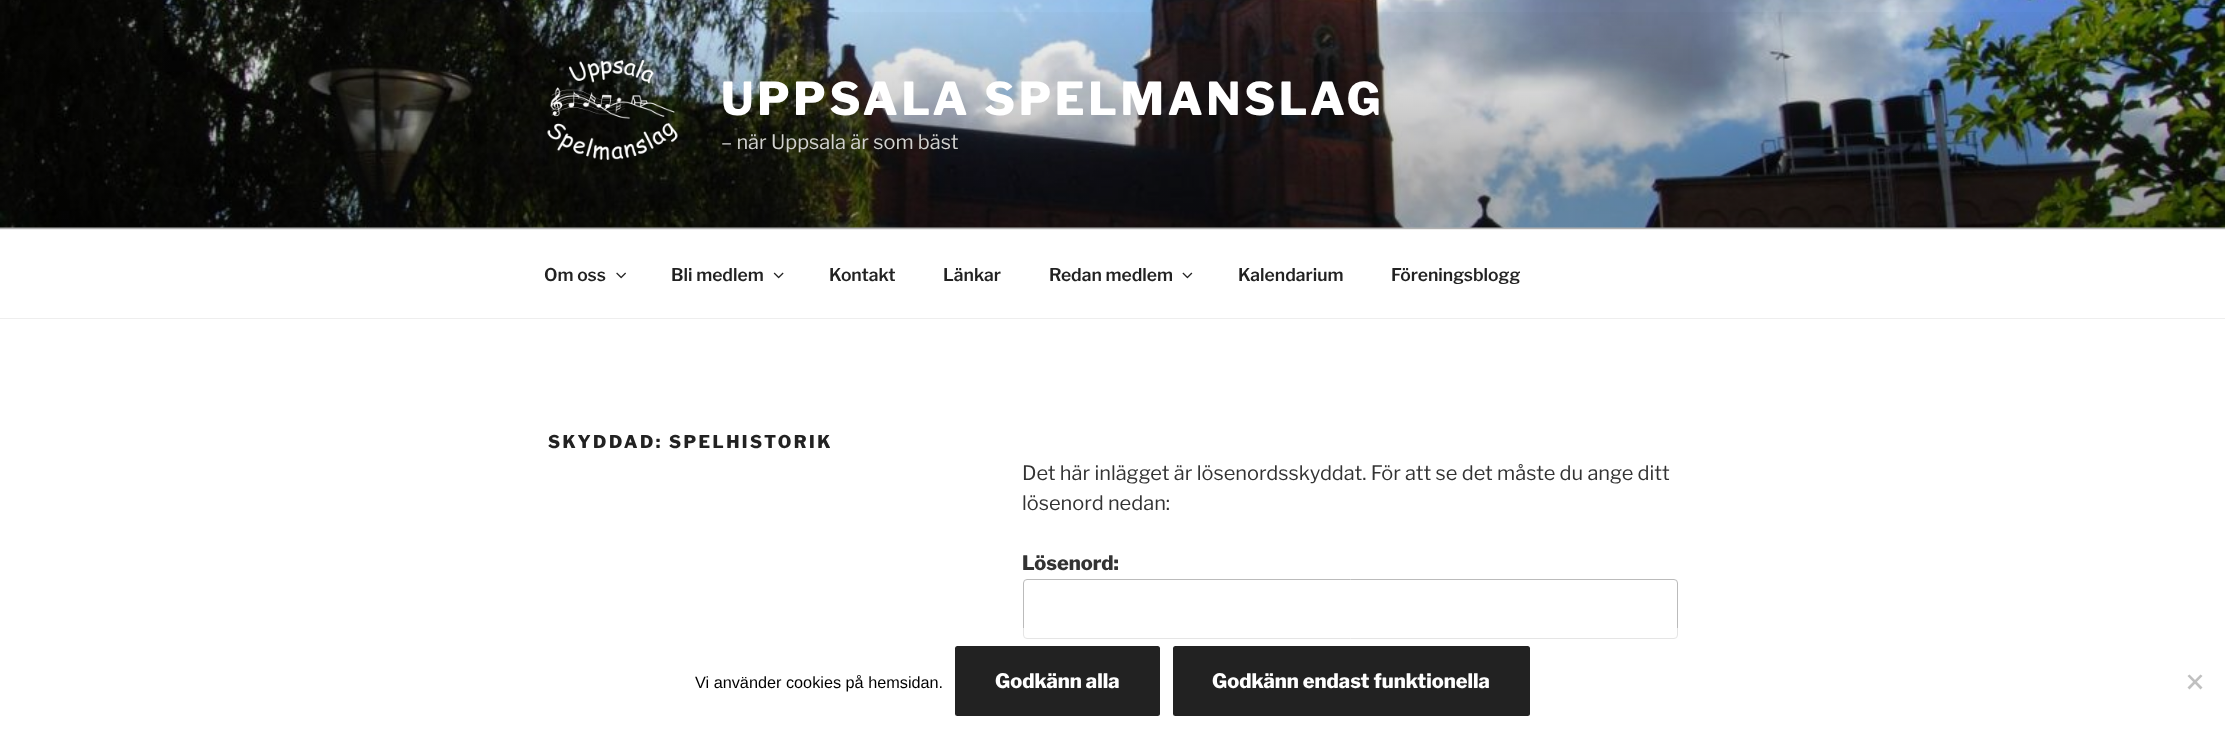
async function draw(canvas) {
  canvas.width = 2225
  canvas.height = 734
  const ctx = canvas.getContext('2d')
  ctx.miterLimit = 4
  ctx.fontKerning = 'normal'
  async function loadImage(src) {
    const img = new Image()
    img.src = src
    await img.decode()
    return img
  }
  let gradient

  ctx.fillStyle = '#fff'
  ctx.fillRect(0, 0, 2225, 734)
  ctx.fillStyle = '#fafafa'
  ctx.fillRect(0, 227, 2225, 2)
  ctx.drawImage(await loadImage('image0.png'), 0, 0, 2225, 228)
  gradient = ctx.createLinearGradient(1113, 0, 1113, 229)
  gradient.addColorStop(0, '#00000000')
  gradient.addColorStop(0.75, '#0000004d')
  gradient.addColorStop(1, '#0000004d')
  ctx.fillStyle = gradient
  ctx.fillRect(0, 12, 2225, 217)
  ctx.drawImage(await loadImage('image1.png'), 547, 60, 131, 100)
  ctx.letterSpacing = '3.6px'
  ctx.font = '100 45px Libre Franklin'
  ctx.fillStyle = '#fff'
  ctx.fillText('UPPSALA SPELMANSLAG', 721, 115)
  ctx.letterSpacing = '0px'
  ctx.font = '100 20px "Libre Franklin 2"'
  ctx.fillStyle = '#d1d1cf'
  ctx.fillText('– när Uppsala är som bäst', 721, 149)
  ctx.fillStyle = '#eee'
  ctx.fillRect(0, 229, 2225, 1)
  ctx.fillRect(0, 318, 2225, 1)
  ctx.font = '100 17.5px "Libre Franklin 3"'
  ctx.fillStyle = '#222'
  ctx.fillText('Om oss', 544, 281)
  ctx.drawImage(await loadImage('image2.png'), 616, 272, 10, 7)
  ctx.fillText('Bli medlem', 671, 281)
  ctx.drawImage(await loadImage('image3.png'), 773, 272, 11, 7)
  ctx.fillText('Kontakt', 829, 281)
  ctx.fillText('Länkar', 943, 281)
  ctx.fillText('Redan medlem', 1049, 281)
  ctx.drawImage(await loadImage('image4.png'), 1182, 272, 11, 7)
  ctx.fillText('Kalendarium', 1238, 281)
  ctx.fillText('Föreningsblogg', 1391, 281)
  ctx.letterSpacing = '2.45px'
  ctx.font = '100 17.5px Libre Franklin'
  ctx.fillText('SKYDDAD: SPELHISTORIK', 548, 448)
  ctx.letterSpacing = '0px'
  ctx.font = '100 20px "Libre Franklin 2"'
  ctx.fillStyle = '#333'
  ctx.fillText('Det här inlägget är lösenordsskyddat. För att se det måste du ange ditt', 1022, 480)
  ctx.fillText('lösenord nedan:', 1022, 510)
  ctx.font = '100 20px Libre Franklin'
  ctx.fillText('Lösenord:', 1022, 570)
  ctx.beginPath()
  ctx.roundRect(1023.5, 579.5, 654, 59, 3.5)
  ctx.strokeStyle = '#bbb'
  ctx.stroke()
  ctx.fillStyle = '#ffffff9c'
  ctx.fillRect(1023, 628, 655, 11)
  ctx.font = '16.25px Liberation Sans'
  ctx.fillStyle = '#000'
  ctx.fillText('Vi använder cookies på hemsidan.', 695, 688)
  ctx.fillStyle = '#222'
  ctx.beginPath()
  ctx.roundRect(955, 646, 205, 70, 2.5)
  ctx.fill()
  ctx.font = '100 20px Libre Franklin'
  ctx.fillStyle = '#fff'
  ctx.fillText('Godkänn alla', 995, 688)
  ctx.fillStyle = '#222'
  ctx.beginPath()
  ctx.roundRect(1173, 646, 357, 70, 2.5)
  ctx.fill()
  ctx.fillStyle = '#fff'
  ctx.fillText('Godkänn endast funktionella', 1212, 688)
  ctx.fillStyle = '#c0c0c0'
  ctx.beginPath()
  ctx.moveTo(2200.5, 674.5)
  ctx.lineTo(2202.5, 676)
  ctx.lineTo(2189.5, 689.5)
  ctx.lineTo(2187.5, 687.5)
  ctx.closePath()
  ctx.fill()
  ctx.beginPath()
  ctx.moveTo(2187.5, 676)
  ctx.lineTo(2189.5, 674.5)
  ctx.lineTo(2202.5, 687.5)
  ctx.lineTo(2200.5, 689.5)
  ctx.closePath()
  ctx.fill()
}

draw(document.querySelector('canvas'))
